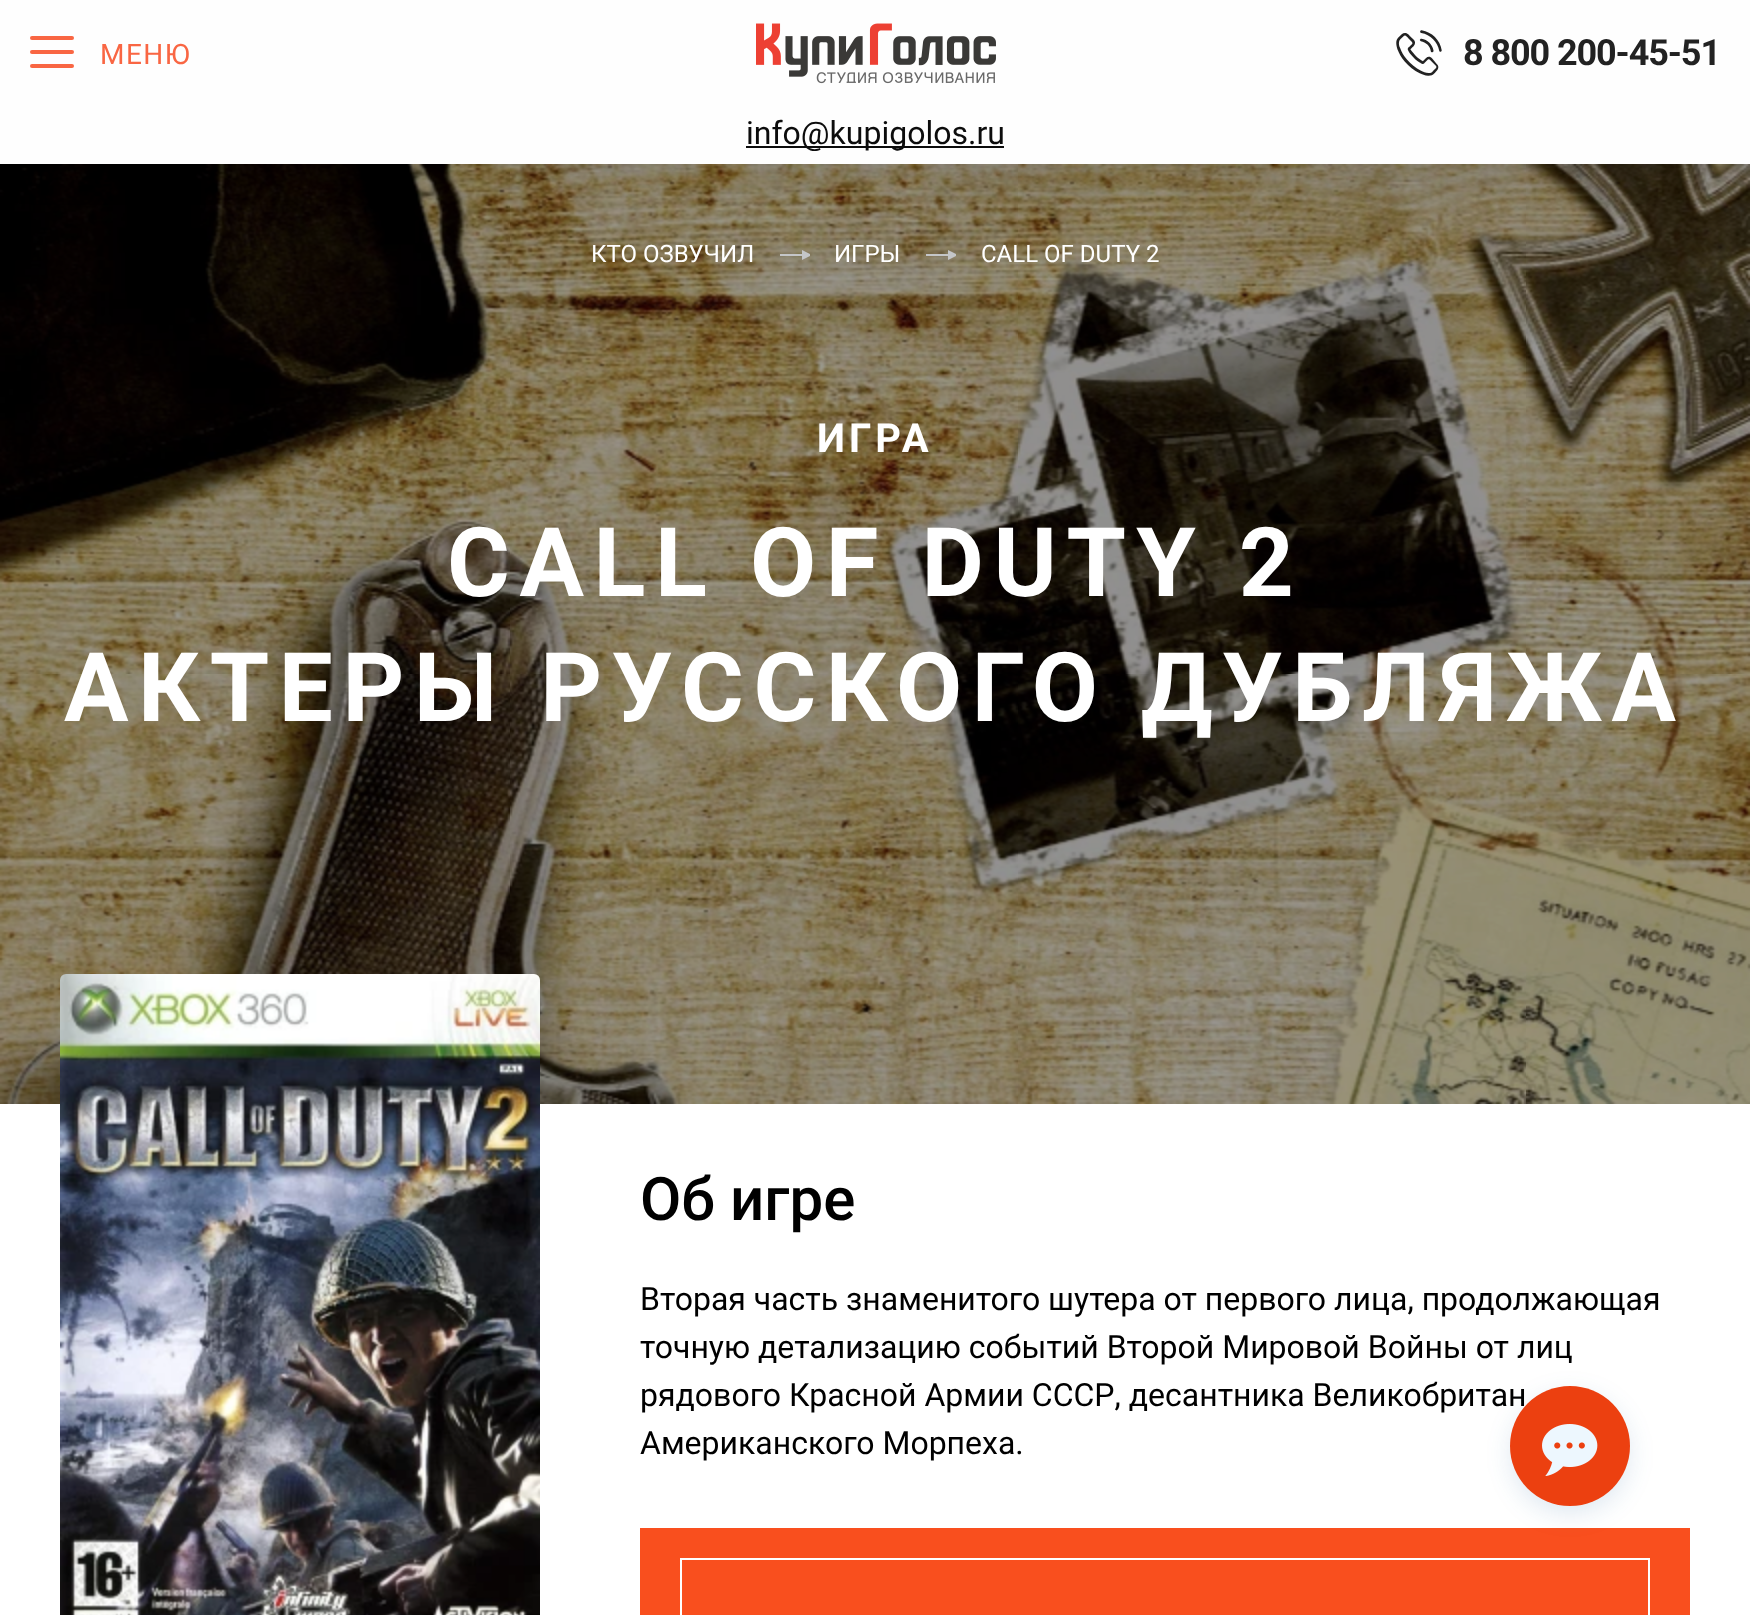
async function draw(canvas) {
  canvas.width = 1750
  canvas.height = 1615
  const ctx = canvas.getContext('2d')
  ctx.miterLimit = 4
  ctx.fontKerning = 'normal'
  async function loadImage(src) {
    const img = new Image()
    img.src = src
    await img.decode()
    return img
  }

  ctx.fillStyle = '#fff'
  ctx.fillRect(0, 0, 1750, 1615)
  ctx.drawImage(await loadImage('image2.png'), 0, 164, 1750, 940)
  ctx.fillStyle = '#0000001a'
  ctx.filter = 'blur(20px)'
  ctx.beginPath()
  ctx.rect(0, 2, 1750, 164)
  ctx.fill()
  ctx.filter = 'none'
  ctx.fillStyle = '#fefefe'
  ctx.fillRect(0, 0, 1750, 164)
  ctx.fillStyle = '#f96643'
  ctx.beginPath()
  ctx.roundRect(30, 50, 44, 4, 2)
  ctx.fill()
  ctx.beginPath()
  ctx.roundRect(30, 36, 44, 4, 2)
  ctx.fill()
  ctx.beginPath()
  ctx.roundRect(30, 64, 44, 4, 2)
  ctx.fill()
  ctx.letterSpacing = '1.5px'
  ctx.font = '28px Roboto'
  ctx.fillText('МЕНЮ', 100, 64)
  ctx.drawImage(await loadImage('image0.png'), 756, 23, 240, 61)
  ctx.drawImage(await loadImage('image1.png'), 1396, 30, 46, 46)
  ctx.letterSpacing = '-1.1px'
  ctx.font = 'bold 36px Roboto'
  ctx.fillStyle = '#222'
  ctx.fillText('8 800 200-45-51', 1463, 65)
  ctx.fillStyle = '#0c0c0c'
  ctx.fillRect(746, 146, 258, 2)
  ctx.letterSpacing = '0px'
  ctx.font = '32px Roboto'
  ctx.fillText('info@kupigolos.ru', 746, 144)
  ctx.font = '24px Roboto'
  ctx.fillStyle = '#fff'
  ctx.fillText('КТО ОЗВУЧИЛ', 591, 262)
  ctx.fillStyle = '#c4c6c8'
  ctx.fillRect(780, 254, 26, 2)
  ctx.beginPath()
  ctx.moveTo(802, 260)
  ctx.lineTo(802, 250)
  ctx.lineTo(810, 254)
  ctx.lineTo(810, 256)
  ctx.closePath()
  ctx.fill()
  ctx.fillStyle = '#fff'
  ctx.fillText('ИГРЫ', 834, 262)
  ctx.fillStyle = '#c4c6c8'
  ctx.fillRect(926, 254, 26, 2)
  ctx.beginPath()
  ctx.moveTo(948, 260)
  ctx.lineTo(948, 250)
  ctx.lineTo(956, 254)
  ctx.lineTo(956, 256)
  ctx.closePath()
  ctx.fill()
  ctx.fillStyle = '#fff'
  ctx.fillText('CALL OF DUTY 2', 981, 262)
  ctx.letterSpacing = '4px'
  ctx.font = 'bold 40px Roboto'
  ctx.fillText('ИГРА', 817, 452)
  ctx.letterSpacing = '9.6px'
  ctx.font = 'bold 96px Roboto'
  ctx.fillText('CALL OF DUTY 2', 447, 596)
  ctx.fillText('АКТЕРЫ РУССКОГО ДУБЛЯЖА', 64, 721)
  ctx.drawImage(await loadImage('image3.png'), 60, 974, 480, 641)
  ctx.letterSpacing = '0px'
  ctx.font = '500 60px Roboto'
  ctx.fillStyle = '#000'
  ctx.fillText('Об игре', 640, 1220)
  ctx.font = '32px Roboto'
  ctx.fillText('Вторая часть знаменитого шутера от первого лица, продолжающая', 640, 1310)
  ctx.fillText('точную детализацию событий Второй Мировой Войны от лиц', 640, 1358)
  ctx.fillText('рядового Красной Армии СССР, десантника Великобритан', 640, 1406)
  ctx.fillText('Американского Морпеха.', 640, 1454)
  ctx.fillStyle = '#f94f1e'
  ctx.fillRect(640, 1528, 1050, 87)
  ctx.strokeStyle = '#fff'
  ctx.lineWidth = 2
  ctx.strokeRect(681, 1559, 968, 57)
  ctx.fillStyle = '#0d549321'
  ctx.filter = 'blur(12px)'
  ctx.beginPath()
  ctx.roundRect(1510, 1394, 120, 120, 60)
  ctx.fill()
  ctx.filter = 'none'
  ctx.fillStyle = '#ec4010'
  ctx.beginPath()
  ctx.arc(1570, 1446, 60, 0, 2 * Math.PI)
  ctx.fill()
  ctx.drawImage(await loadImage('image4.png'), 1542, 1424, 56, 52)
}

draw(document.querySelector('canvas'))
